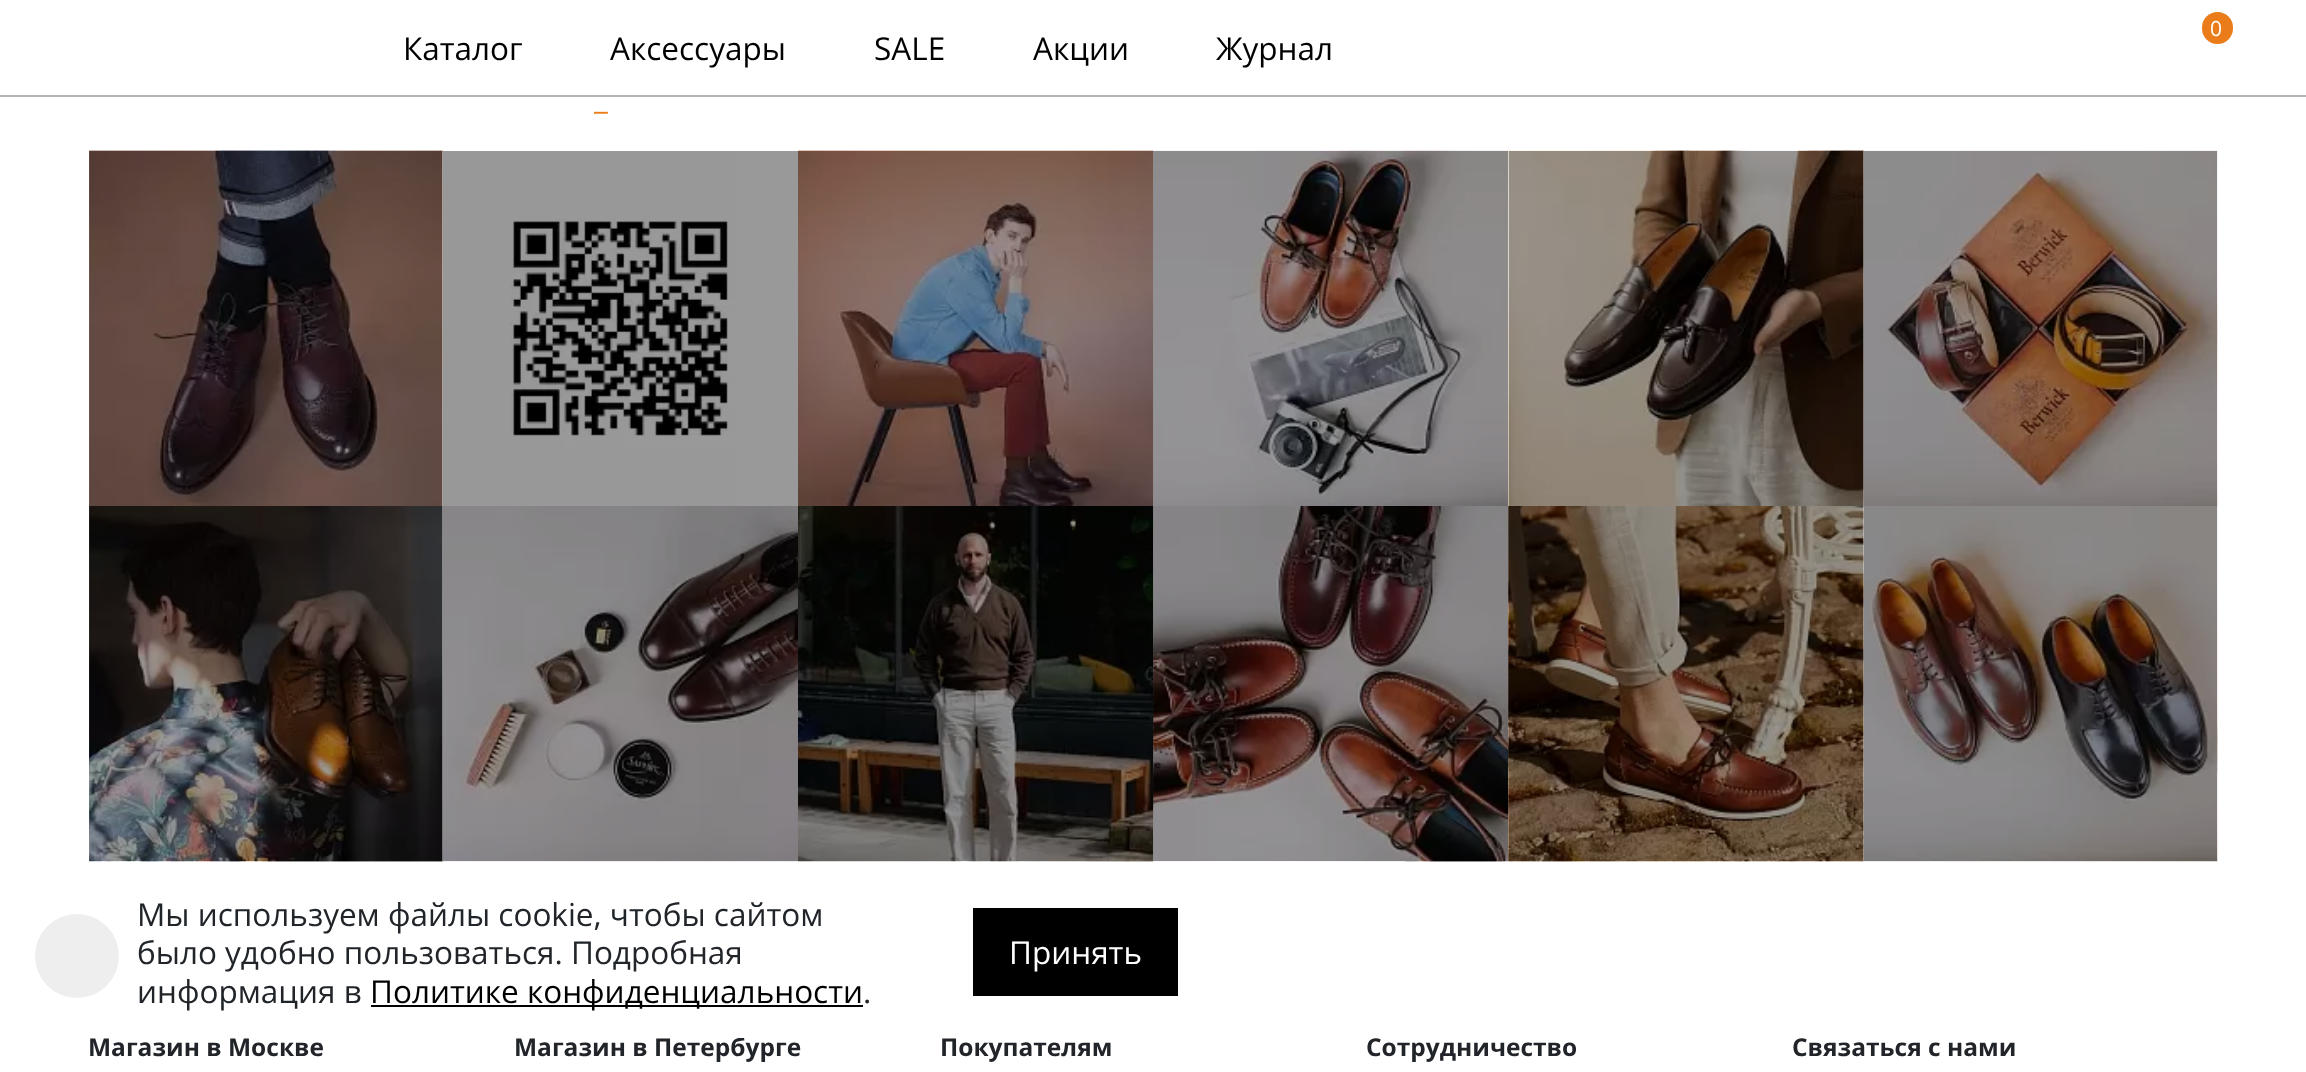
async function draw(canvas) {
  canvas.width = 2306
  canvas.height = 1072
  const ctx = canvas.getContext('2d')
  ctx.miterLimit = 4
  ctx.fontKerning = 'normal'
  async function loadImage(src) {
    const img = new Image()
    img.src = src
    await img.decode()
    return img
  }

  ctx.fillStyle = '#fff'
  ctx.fillRect(0, 0, 2306, 1072)
  ctx.fillStyle = '#999'
  ctx.fillRect(738, 151, 60, 355)
  ctx.fillStyle = '#b4b4b4'
  ctx.fillRect(0, 95, 2306, 2)
  ctx.fillStyle = '#ea7c19'
  ctx.beginPath()
  ctx.roundRect(2202, 12, 31, 32, 15.5)
  ctx.fill()
  ctx.font = '21px Open Sans'
  ctx.fillStyle = '#fff'
  ctx.fillText('0', 2210, 36)
  ctx.font = '31.5px Open Sans'
  ctx.fillStyle = '#000'
  ctx.fillText('Каталог', 403, 60)
  ctx.fillText('Аксессуары', 610, 60)
  ctx.fillText('SALE', 874, 60)
  ctx.fillText('Акции', 1033, 60)
  ctx.fillText('Журнал', 1216, 60)
  ctx.fillStyle = '#ea7c19'
  ctx.fillText('_', 594, 109)
  ctx.drawImage(await loadImage('image0.png'), 89, 150, 354, 356)
  ctx.drawImage(await loadImage('image1.png'), 89, 150, 354, 356)
  ctx.drawImage(await loadImage('image2.png'), 442, 151, 1, 355)
  ctx.drawImage(await loadImage('image3.png'), 442, 151, 296, 355)
  ctx.drawImage(await loadImage('image4.png'), 798, 150, 356, 356)
  ctx.drawImage(await loadImage('image5.png'), 798, 150, 356, 356)
  ctx.drawImage(await loadImage('image6.png'), 1153, 150, 356, 356)
  ctx.drawImage(await loadImage('image7.png'), 1153, 150, 356, 356)
  ctx.fillStyle = '#00000066'
  ctx.fillRect(1153, 151, 356, 355)
  ctx.drawImage(await loadImage('image8.png'), 1508, 150, 356, 356)
  ctx.drawImage(await loadImage('image9.png'), 1508, 150, 356, 356)
  ctx.drawImage(await loadImage('image10.png'), 1863, 150, 355, 356)
  ctx.drawImage(await loadImage('image11.png'), 1863, 150, 355, 356)
  ctx.drawImage(await loadImage('image12.png'), 89, 506, 354, 356)
  ctx.drawImage(await loadImage('image13.png'), 89, 506, 354, 356)
  ctx.drawImage(await loadImage('image14.png'), 442, 506, 356, 356)
  ctx.drawImage(await loadImage('image15.png'), 442, 506, 356, 356)
  ctx.drawImage(await loadImage('image16.png'), 798, 506, 356, 356)
  ctx.drawImage(await loadImage('image17.png'), 798, 506, 356, 356)
  ctx.drawImage(await loadImage('image18.png'), 1153, 506, 356, 356)
  ctx.drawImage(await loadImage('image19.png'), 1153, 506, 356, 356)
  ctx.fillRect(1153, 506, 356, 355)
  ctx.drawImage(await loadImage('image20.png'), 1508, 506, 356, 356)
  ctx.drawImage(await loadImage('image21.png'), 1508, 506, 356, 356)
  ctx.drawImage(await loadImage('image22.png'), 1863, 506, 355, 356)
  ctx.drawImage(await loadImage('image23.png'), 1863, 506, 355, 356)
  ctx.fillStyle = '#eee'
  ctx.beginPath()
  ctx.arc(77, 956, 42, 0, 2 * Math.PI)
  ctx.fill()
  ctx.font = 'bold 24.5px Open Sans'
  ctx.fillStyle = '#212529'
  ctx.fillText('Магазин в Петербурге', 514, 1056)
  ctx.fillStyle = '#fff'
  ctx.fillRect(739, 1037, 6, 1)
  ctx.font = '31.5px Open Sans'
  ctx.fillStyle = '#212529'
  ctx.fillText('Мы используем файлы cookie, чтобы сайтом', 137, 926)
  ctx.fillText('было удобно пользоваться. Подробная', 137, 964)
  ctx.fillText('информация в', 137, 1003)
  ctx.fillStyle = '#000'
  ctx.fillRect(371, 1005, 492, 2)
  ctx.fillText('Политике конфиденциальности', 370, 1003)
  ctx.fillStyle = '#212529'
  ctx.fillText('.', 863, 1003)
  ctx.fillStyle = '#000'
  ctx.fillRect(973, 908, 205, 88)
  ctx.fillStyle = '#fff'
  ctx.fillText('Принять', 1009, 964)
  ctx.font = 'bold 24.5px Open Sans'
  ctx.fillStyle = '#212529'
  ctx.fillText('Магазин в Москве', 88, 1056)
  ctx.fillText('Покупателям', 940, 1056)
  ctx.fillText('Сотрудничество', 1366, 1056)
  ctx.fillText('Связаться с нами', 1792, 1056)
}

draw(document.querySelector('canvas'))
